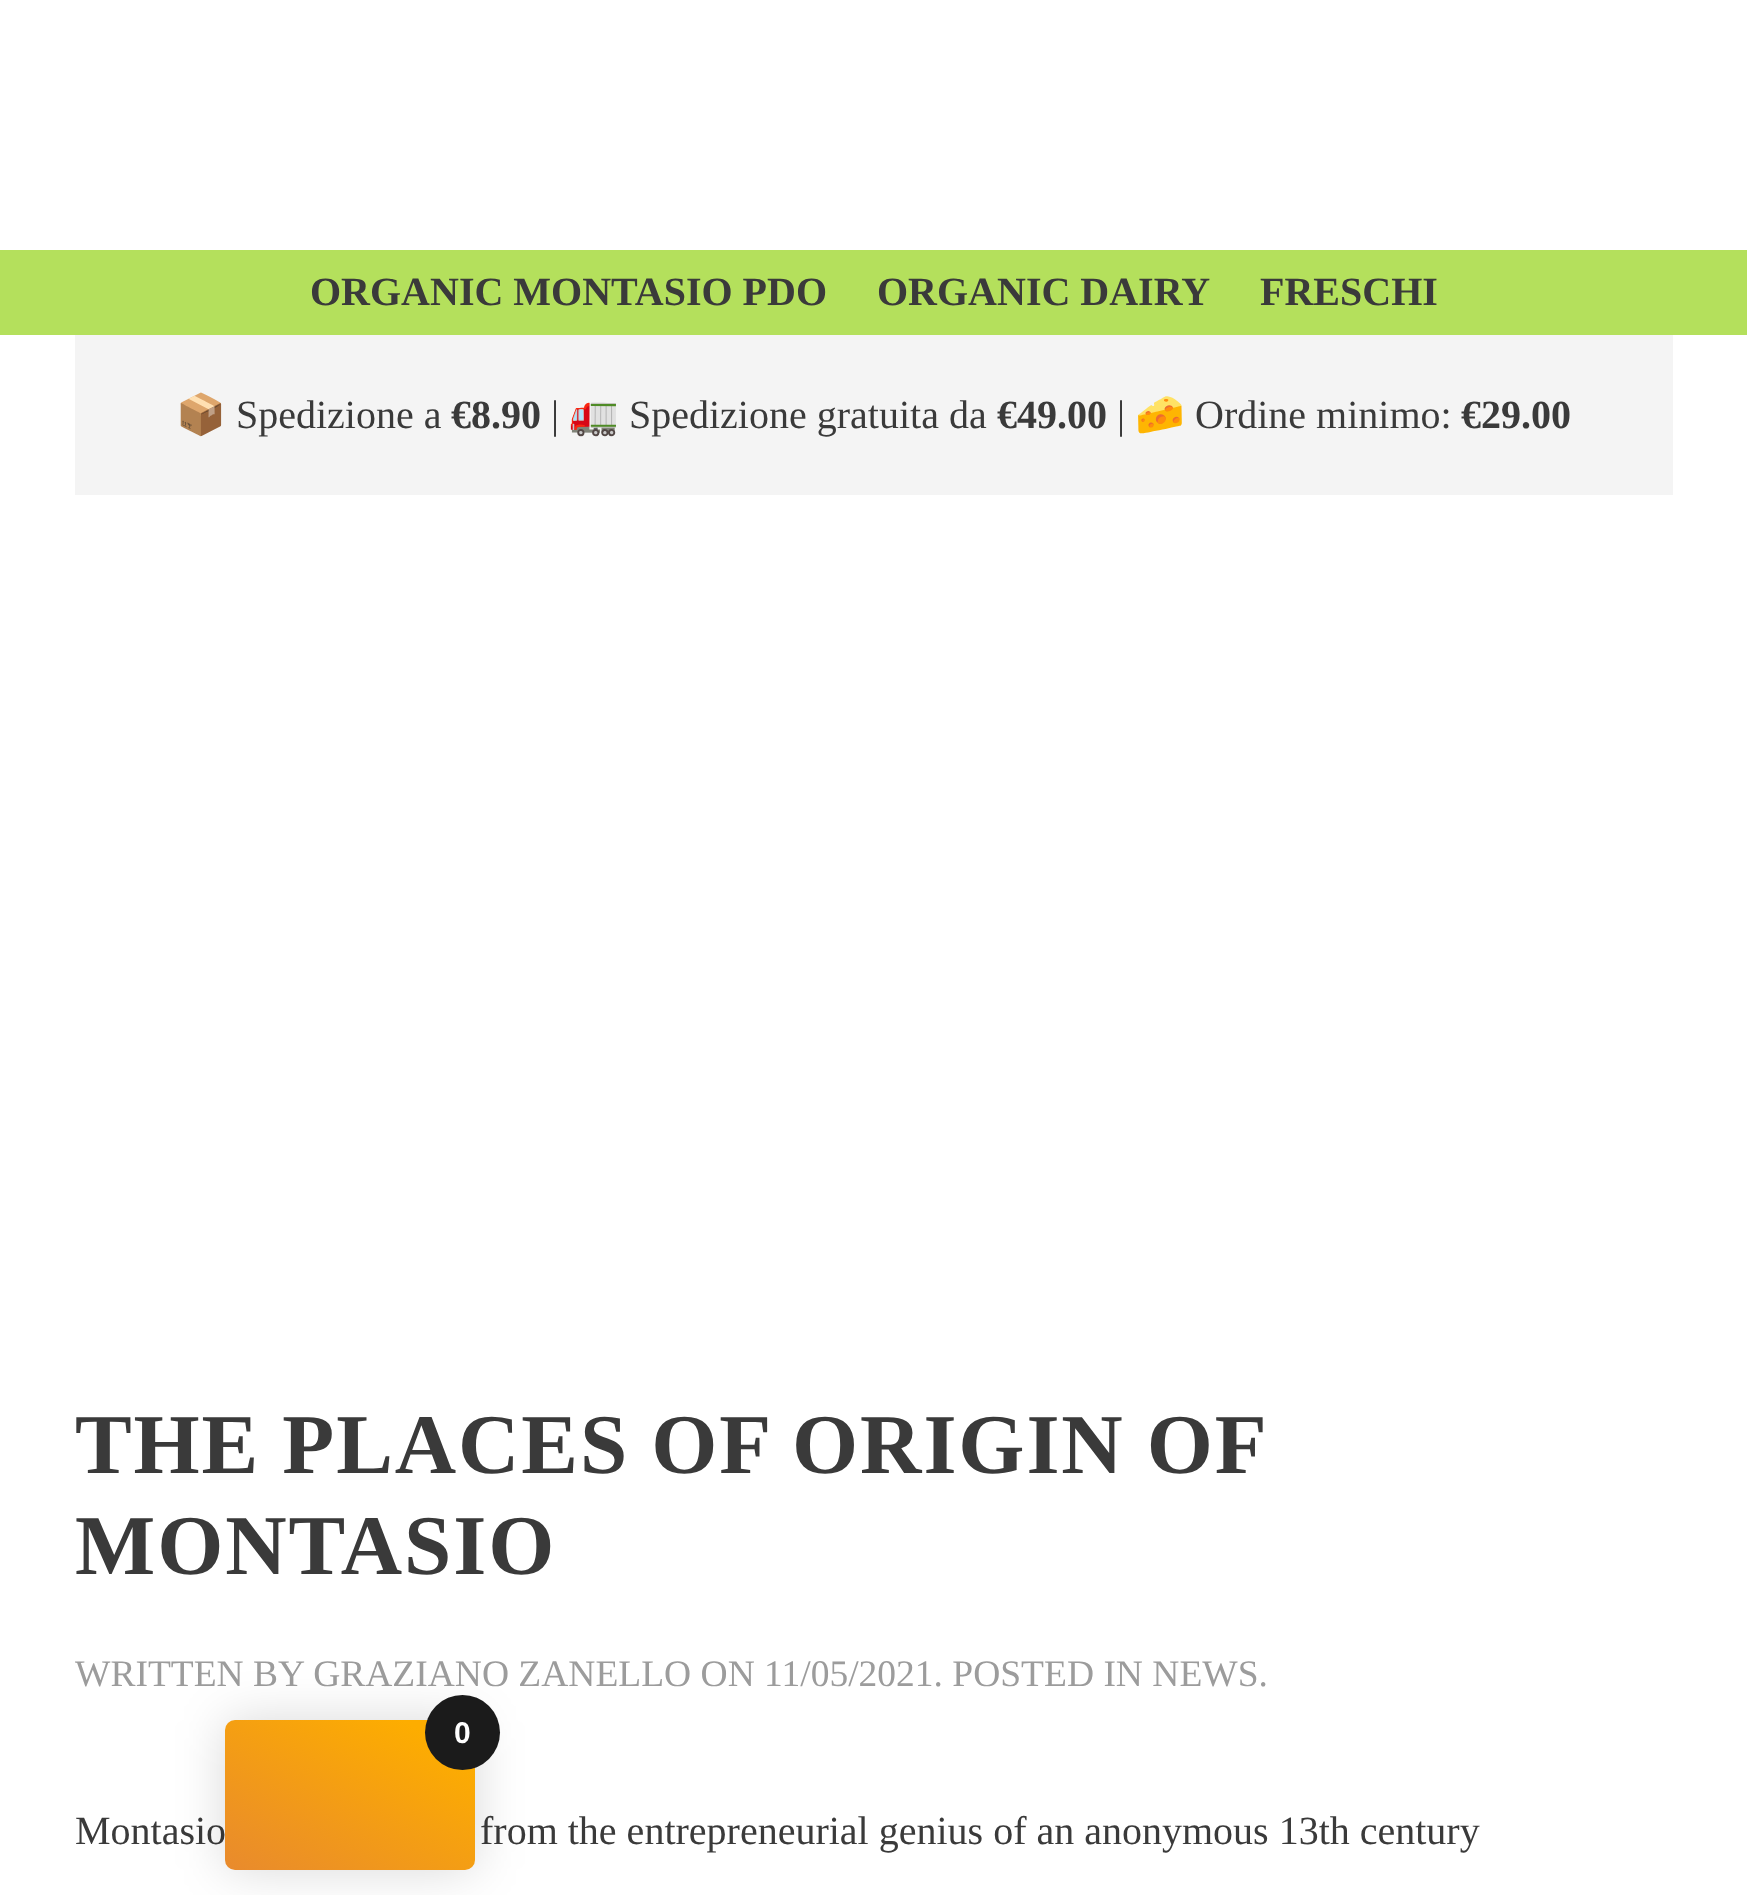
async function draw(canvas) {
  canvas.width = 1747
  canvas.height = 1895
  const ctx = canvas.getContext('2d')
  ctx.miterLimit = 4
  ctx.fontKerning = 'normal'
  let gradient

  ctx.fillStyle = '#fff'
  ctx.fillRect(0, 0, 1747, 1895)
  ctx.fillStyle = '#b4e05c'
  ctx.fillRect(0, 250, 1747, 85)
  ctx.font = 'bold 40px Liberation Serif'
  ctx.fillStyle = '#3a3a3a'
  ctx.fillText('ORGANIC MONTASIO PDO', 310, 305)
  ctx.fillText('ORGANIC DAIRY', 877, 305)
  ctx.fillText('FRESCHI', 1260, 305)
  ctx.fillStyle = '#f4f4f4'
  ctx.fillRect(75, 335, 1598, 160)
  ctx.font = '40px Noto Color Emoji'
  ctx.fillStyle = '#3a3a3a'
  ctx.fillText('📦', 176, 428)
  ctx.font = '40px Liberation Serif'
  ctx.fillText('Spedizione a', 236, 428)
  ctx.font = 'bold 40px Liberation Serif'
  ctx.fillText('€8.90', 451, 428)
  ctx.font = '40px Liberation Serif'
  ctx.fillText('|', 551, 428)
  ctx.font = '40px Noto Color Emoji'
  ctx.fillText('🚛', 569, 428)
  ctx.font = '40px Liberation Serif'
  ctx.fillText('Spedizione gratuita da', 629, 428)
  ctx.font = 'bold 40px Liberation Serif'
  ctx.fillText('€49.00', 997, 428)
  ctx.font = '40px Liberation Serif'
  ctx.fillText('|', 1117, 428)
  ctx.font = '40px Noto Color Emoji'
  ctx.fillText('🧀', 1135, 428)
  ctx.font = '40px Liberation Serif'
  ctx.fillText('Ordine minimo:', 1195, 428)
  ctx.font = 'bold 40px Liberation Serif'
  ctx.fillText('€29.00', 1461, 428)
  ctx.letterSpacing = '1.9px'
  ctx.wordSpacing = '-1px'
  ctx.font = 'bold 85px Liberation Serif'
  ctx.fillText('THE PLACES OF ORIGIN OF', 75, 1473)
  ctx.wordSpacing = '0px'
  ctx.fillText('MONTASIO', 75, 1574)
  ctx.letterSpacing = '0px'
  ctx.font = '37.5px Liberation Serif'
  ctx.fillStyle = '#9c9c9c'
  ctx.fillText('WRITTEN BY GRAZIANO ZANELLO ON 11/05/2021. POSTED IN NEWS.', 75, 1686)
  ctx.font = '40px Liberation Serif'
  ctx.fillStyle = '#3a3a3a'
  ctx.fillText('Montasio', 75, 1844)
  ctx.fillText('from the entrepreneurial genius of an anonymous 13th century', 480, 1844)
  ctx.fillStyle = '#00000026'
  ctx.filter = 'blur(25px)'
  ctx.beginPath()
  ctx.roundRect(225, 1720, 250, 150, 10)
  ctx.fill()
  ctx.filter = 'none'
  gradient = ctx.createLinearGradient(412, 1685, 288, 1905)
  gradient.addColorStop(0.14, '#fdad00')
  gradient.addColorStop(0.98, '#e98b2c')
  ctx.fillStyle = gradient
  ctx.beginPath()
  ctx.roundRect(225, 1720, 250, 150, 10)
  ctx.fill()
  ctx.fillStyle = '#1b1b1b'
  ctx.beginPath()
  ctx.arc(462.5, 1732.5, 37.5, 0, 2 * Math.PI)
  ctx.fill()
  ctx.font = 'bold 30px Liberation Sans'
  ctx.fillStyle = '#fff'
  ctx.fillText('0', 454, 1743)
}

draw(document.querySelector('canvas'))
